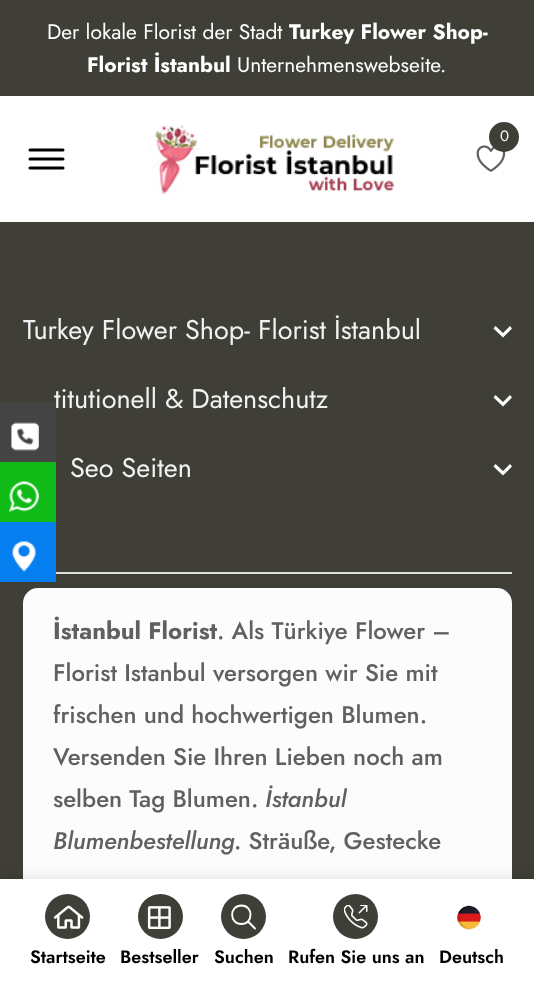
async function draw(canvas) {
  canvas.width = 534
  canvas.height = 982
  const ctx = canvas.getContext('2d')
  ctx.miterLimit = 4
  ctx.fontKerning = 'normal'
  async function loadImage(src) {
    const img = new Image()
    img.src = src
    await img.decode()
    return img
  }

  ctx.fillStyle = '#fff'
  ctx.fillRect(0, 0, 534, 982)
  ctx.fillStyle = '#3f3f38'
  ctx.fillRect(0, 0, 534, 96)
  ctx.font = '21px Jost'
  ctx.fillStyle = '#fff'
  ctx.fillText('Der lokale Florist der Stadt', 47, 39)
  ctx.font = 'bold 21px Jost'
  ctx.fillText('Turkey Flower Shop-', 289, 39)
  ctx.fillText('Florist İstanbul', 87, 72)
  ctx.font = '21px Jost'
  ctx.fillText('Unternehmenswebseite.', 237, 72)
  ctx.drawImage(await loadImage('image0.png'), 149, 125, 245, 70)
  ctx.drawImage(await loadImage('image1.png'), 476, 145, 30, 27)
  ctx.fillStyle = '#3f3f38'
  ctx.beginPath()
  ctx.arc(504, 137, 15, 0, 2 * Math.PI)
  ctx.fill()
  ctx.font = '15px Jost'
  ctx.fillStyle = '#fff'
  ctx.fillText('0', 500, 141)
  ctx.beginPath()
  ctx.moveTo(30, 150)
  ctx.lineTo(63, 150)
  ctx.moveTo(30, 159)
  ctx.lineTo(63, 159)
  ctx.moveTo(30, 168)
  ctx.lineTo(63, 168)
  ctx.strokeStyle = '#000'
  ctx.lineWidth = 3
  ctx.lineCap = 'round'
  ctx.stroke()
  ctx.fillStyle = '#3f3f38'
  ctx.fillRect(0, 222, 534, 657)
  ctx.fillStyle = '#fcfcfc'
  ctx.beginPath()
  ctx.roundRect(23, 588, 489, 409, 15)
  ctx.fill()
  ctx.fillStyle = '#0000001f'
  ctx.filter = 'blur(7px)'
  ctx.beginPath()
  ctx.rect(0, 879, 534, 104)
  ctx.fill()
  ctx.filter = 'none'
  ctx.fillStyle = '#fff'
  ctx.fillRect(0, 879, 534, 103)
  ctx.fillStyle = '#3f3f38'
  ctx.beginPath()
  ctx.arc(67.5, 916.5, 22.5, 0, 2 * Math.PI)
  ctx.fill()
  ctx.drawImage(await loadImage('image2.png'), 53, 905, 31, 24)
  ctx.font = '600 18px Jost'
  ctx.fillStyle = '#000'
  ctx.fillText('Startseite', 30, 963)
  ctx.fillStyle = '#3f3f38'
  ctx.beginPath()
  ctx.arc(160.5, 916.5, 22.5, 0, 2 * Math.PI)
  ctx.fill()
  ctx.drawImage(await loadImage('image3.png'), 147, 906, 24, 23)
  ctx.fillStyle = '#000'
  ctx.fillText('Bestseller', 120, 963)
  ctx.fillStyle = '#3f3f38'
  ctx.beginPath()
  ctx.arc(243.5, 916.5, 22.5, 0, 2 * Math.PI)
  ctx.fill()
  ctx.beginPath()
  ctx.moveTo(241.5, 905.5)
  ctx.bezierCurveTo(229, 905.5, 229, 924, 241.5, 924)
  ctx.bezierCurveTo(253.5, 924, 253.5, 905.5, 241.5, 905.5)
  ctx.closePath()
  ctx.strokeStyle = '#fff'
  ctx.lineWidth = 1.9
  ctx.lineCap = 'butt'
  ctx.stroke()
  ctx.beginPath()
  ctx.moveTo(248.5, 922)
  ctx.lineTo(255, 928.5)
  ctx.lineCap = 'round'
  ctx.stroke()
  ctx.fillStyle = '#000'
  ctx.fillText('Suchen', 214, 963)
  ctx.fillStyle = '#3f3f38'
  ctx.beginPath()
  ctx.arc(355.5, 916.5, 22.5, 0, 2 * Math.PI)
  ctx.fill()
  ctx.drawImage(await loadImage('image4.png'), 344, 905, 24, 24)
  ctx.fillStyle = '#000'
  ctx.fillText('Rufen Sie uns an', 288, 963)
  ctx.drawImage(await loadImage('image5.png'), 457, 905, 24, 25)
  ctx.fillText('Deutsch', 439, 963)
  ctx.fillStyle = '#ddd'
  ctx.fillRect(56, 572, 456, 2)
  ctx.font = '27px Jost'
  ctx.fillStyle = '#f2f2f2'
  ctx.fillText('Turkey Flower Shop- Florist İstanbul', 23, 339)
  ctx.fillStyle = '#fff'
  ctx.beginPath()
  ctx.moveTo(510, 326)
  ctx.lineTo(503, 333)
  ctx.lineTo(495.5, 326)
  ctx.lineTo(493.5, 328.5)
  ctx.lineTo(503, 337.5)
  ctx.lineTo(512, 328.5)
  ctx.closePath()
  ctx.fill()
  ctx.fillStyle = '#f2f2f2'
  ctx.fillText('titutionell & Datenschutz', 54, 408)
  ctx.fillStyle = '#fff'
  ctx.beginPath()
  ctx.moveTo(510, 395)
  ctx.lineTo(503, 402)
  ctx.lineTo(495.5, 395)
  ctx.lineTo(493.5, 397.5)
  ctx.lineTo(503, 406.5)
  ctx.lineTo(512, 397.5)
  ctx.closePath()
  ctx.fill()
  ctx.fillStyle = '#f2f2f2'
  ctx.fillText('Seo Seiten', 70, 477)
  ctx.fillStyle = '#fff'
  ctx.beginPath()
  ctx.moveTo(510, 464)
  ctx.lineTo(503, 471)
  ctx.lineTo(495.5, 464)
  ctx.lineTo(493.5, 466.5)
  ctx.lineTo(503, 475.5)
  ctx.lineTo(512, 466.5)
  ctx.closePath()
  ctx.fill()
  ctx.font = 'bold 24px Jost'
  ctx.fillStyle = '#606060'
  ctx.fillText('İstanbul Florist', 53, 639)
  ctx.font = '500 24px Jost'
  ctx.fillText('. Als Türkiye Flower –', 217, 639)
  ctx.fillText('Florist Istanbul versorgen wir Sie mit', 53, 681)
  ctx.fillText('frischen und hochwertigen Blumen.', 53, 723)
  ctx.fillText('Versenden Sie Ihren Lieben noch am', 53, 765)
  ctx.fillText('selben Tag Blumen.', 53, 807)
  ctx.font = 'italic 500 24px Jost'
  ctx.fillText('İstanbul', 265, 807)
  ctx.fillText('Blumenbestellung', 53, 849)
  ctx.font = '500 24px Jost'
  ctx.fillText('. Sträuße, Gestecke', 234, 849)
  ctx.fillStyle = '#444'
  ctx.fillRect(0, 402, 56, 60)
  ctx.drawImage(await loadImage('image6.png'), 11, 422, 28, 29)
  ctx.fillStyle = '#11bb17'
  ctx.fillRect(0, 462, 56, 60)
  ctx.drawImage(await loadImage('image7.png'), 9, 481, 30, 31)
  ctx.fillStyle = '#057eef'
  ctx.fillRect(0, 522, 56, 60)
  ctx.drawImage(await loadImage('image8.png'), 12, 541, 24, 31)
}

draw(document.querySelector('canvas'))
